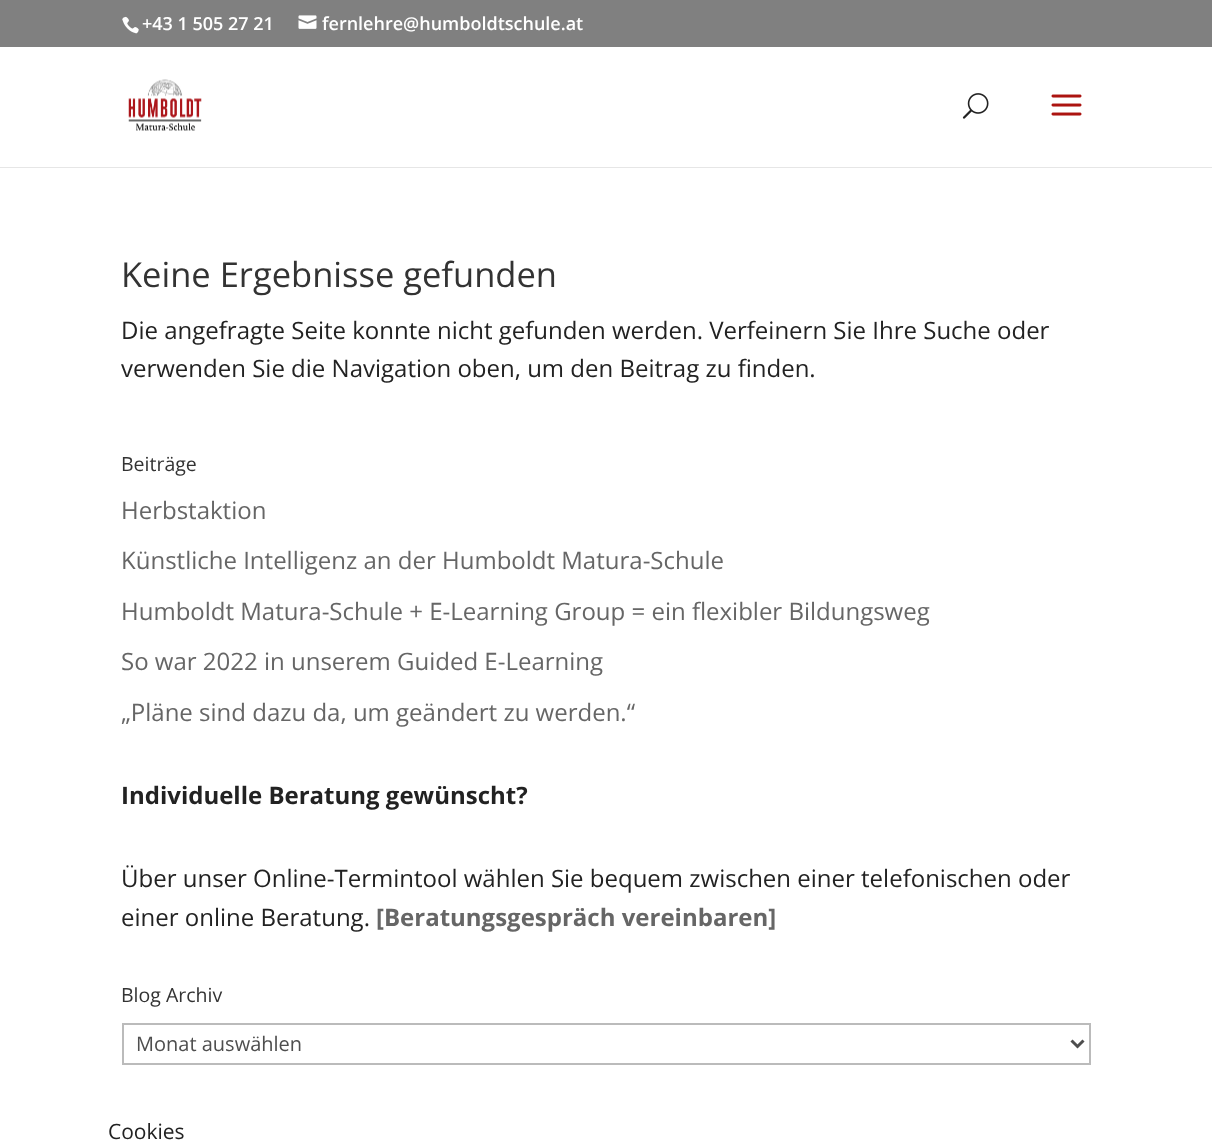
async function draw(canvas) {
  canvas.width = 1212
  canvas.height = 1144
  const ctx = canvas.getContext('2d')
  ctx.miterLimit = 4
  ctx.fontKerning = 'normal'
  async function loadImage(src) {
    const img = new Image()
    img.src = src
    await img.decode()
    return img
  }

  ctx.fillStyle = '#fff'
  ctx.fillRect(0, 0, 1212, 1144)
  ctx.fillStyle = '#808080'
  ctx.fillRect(0, 0, 1212, 47)
  ctx.drawImage(await loadImage('image0.png'), 122, 16, 17, 18)
  ctx.font = '600 18px Open Sans'
  ctx.fillStyle = '#fff'
  ctx.fillText('+43 1 505 27 21', 142, 30)
  ctx.drawImage(await loadImage('image1.png'), 298, 15, 19, 14)
  ctx.fillText('fernlehre@humboldtschule.at', 322, 30)
  ctx.fillStyle = '#e6e6e6'
  ctx.fillRect(0, 167, 1212, 1)
  ctx.drawImage(await loadImage('image2.png'), 128, 79, 74, 52)
  ctx.drawImage(await loadImage('image3.png'), 962, 93, 27, 26)
  ctx.drawImage(await loadImage('image4.png'), 1051, 94, 31, 22)
  ctx.font = '34.5px Open Sans'
  ctx.fillStyle = '#333'
  ctx.fillText('Keine Ergebnisse gefunden', 121, 287)
  ctx.font = '24px Open Sans'
  ctx.fillStyle = '#222'
  ctx.fillText('Die angefragte Seite konnte nicht gefunden werden. Verfeinern Sie Ihre Suche oder', 121, 339)
  ctx.fillText('verwenden Sie die Navigation oben, um den Beitrag zu finden.', 121, 377)
  ctx.font = '19.5px Open Sans'
  ctx.fillStyle = '#333'
  ctx.fillText('Beiträge', 121, 471)
  ctx.font = '24px Open Sans'
  ctx.fillStyle = '#666'
  ctx.fillText('Herbstaktion', 121, 519)
  ctx.fillText('Künstliche Intelligenz an der Humboldt Matura-Schule', 121, 569)
  ctx.fillText('Humboldt Matura-Schule + E-Learning Group = ein flexibler Bildungsweg', 121, 620)
  ctx.fillText('So war 2022 in unserem Guided E-Learning', 121, 670)
  ctx.fillText('„Pläne sind dazu da, um geändert zu werden.“', 121, 721)
  ctx.font = 'bold 24px Open Sans'
  ctx.fillStyle = '#222'
  ctx.fillText('Individuelle Beratung gewünscht?', 121, 804)
  ctx.font = '24px Open Sans'
  ctx.fillText('Über unser Online-Termintool wählen Sie bequem zwischen einer telefonischen oder', 121, 887)
  ctx.fillText('einer online Beratung.', 121, 926)
  ctx.font = 'bold 24px Open Sans'
  ctx.fillStyle = '#666'
  ctx.fillText('[Beratungsgespräch vereinbaren]', 376, 926)
  ctx.font = '19.5px Open Sans'
  ctx.fillStyle = '#333'
  ctx.fillText('Blog Archiv', 121, 1002)
  ctx.strokeStyle = '#bbb'
  ctx.lineWidth = 2
  ctx.strokeRect(123, 1024, 967, 40)
  ctx.beginPath()
  ctx.moveTo(1071.5, 1040.5)
  ctx.lineTo(1077.5, 1046.5)
  ctx.lineTo(1083.5, 1040.5)
  ctx.strokeStyle = '#4e4e4e'
  ctx.lineWidth = 3
  ctx.stroke()
  ctx.font = '20px Open Sans'
  ctx.fillStyle = '#4e4e4e'
  ctx.fillText('Monat auswählen', 136, 1051)
  ctx.font = '21px Open Sans'
  ctx.fillStyle = '#222'
  ctx.fillText('Cookies', 108, 1139)
}

draw(document.querySelector('canvas'))
